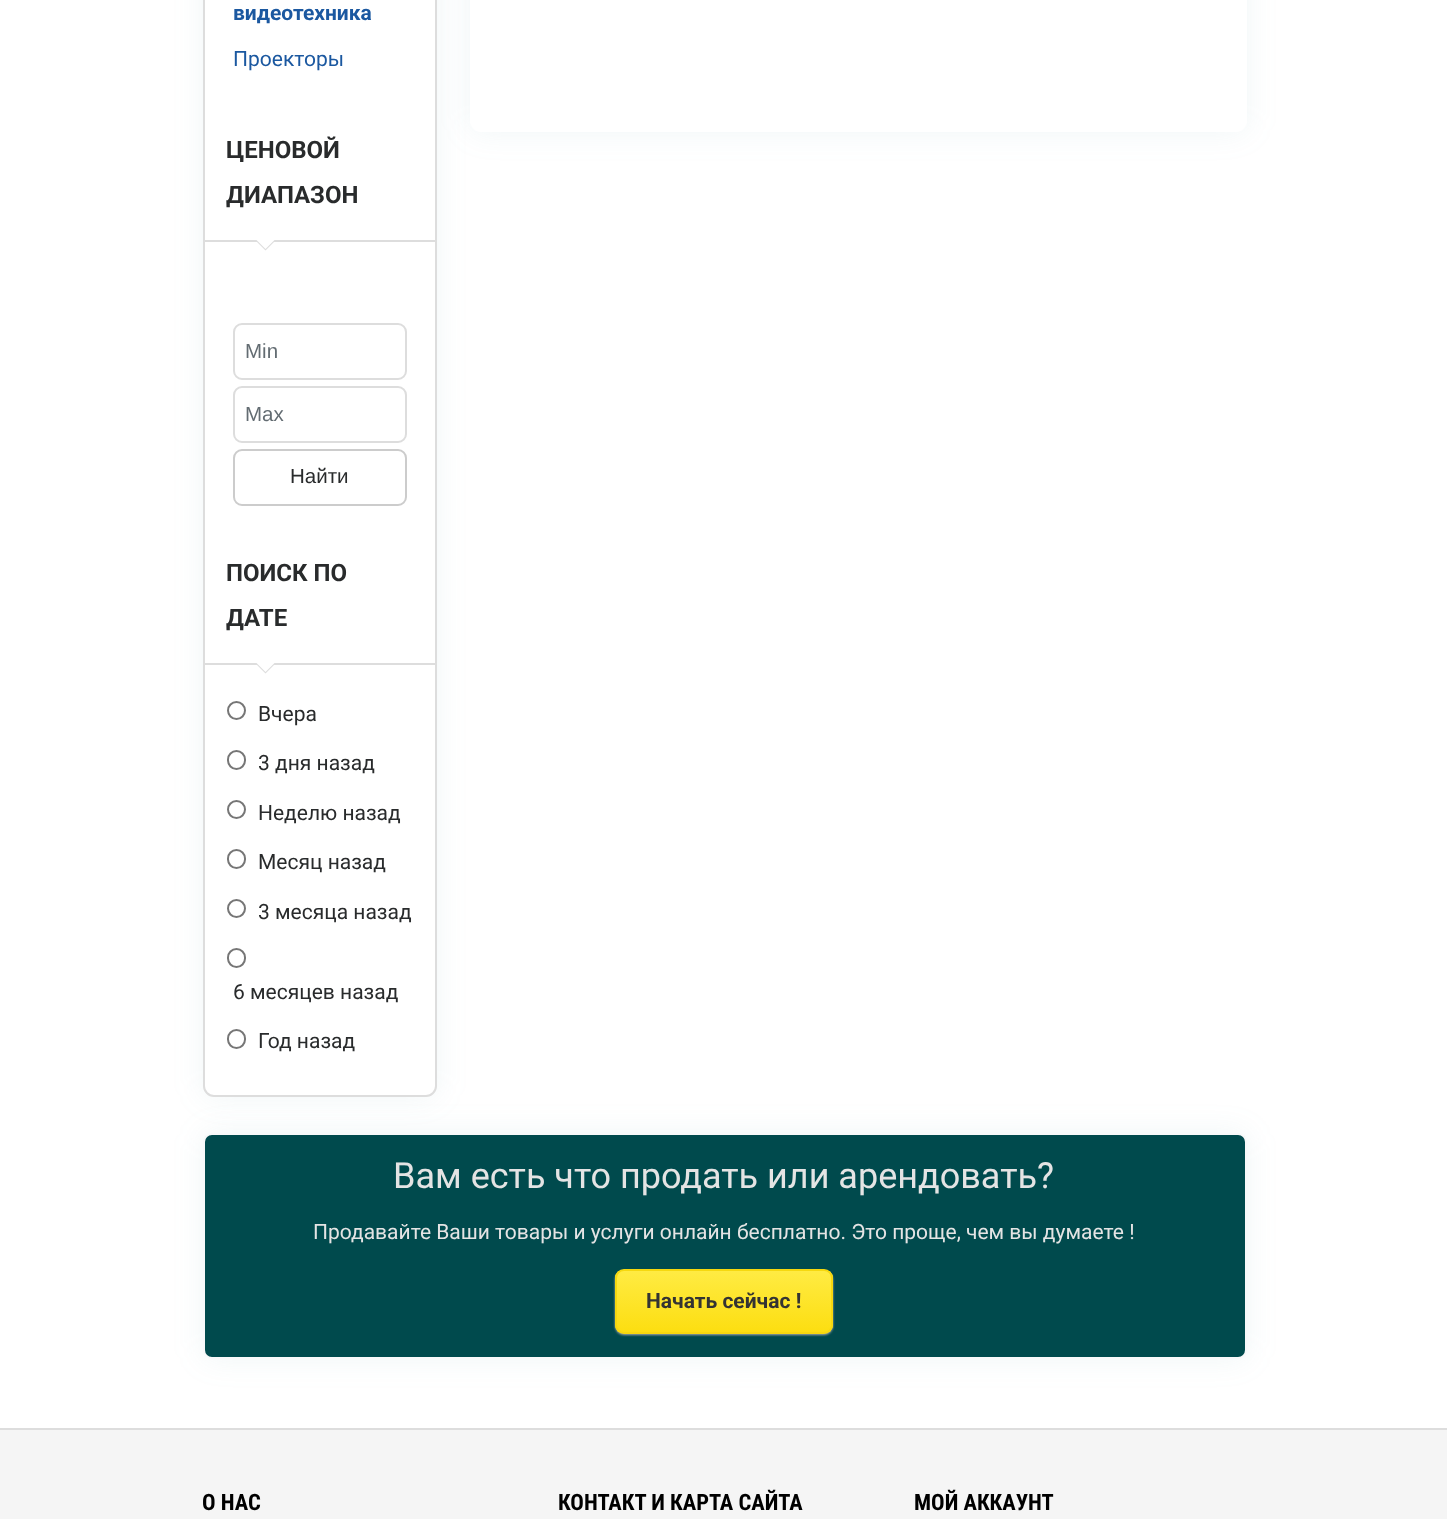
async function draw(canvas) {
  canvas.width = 1447
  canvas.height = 1519
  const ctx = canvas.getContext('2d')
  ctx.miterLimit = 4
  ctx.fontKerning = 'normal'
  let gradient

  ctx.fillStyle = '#fff'
  ctx.fillRect(0, 0, 1447, 1519)
  ctx.fillStyle = '#6ea2ad1a'
  ctx.filter = 'blur(15px)'
  ctx.beginPath()
  ctx.roundRect(203, -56, 234, 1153, 11)
  ctx.fill()
  ctx.filter = 'none'
  ctx.fillStyle = '#fff'
  ctx.beginPath()
  ctx.roundRect(204, -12, 232, 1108, 10)
  ctx.fill()
  ctx.strokeStyle = '#ddd'
  ctx.lineWidth = 2
  ctx.stroke()
  ctx.font = 'bold 21px Roboto'
  ctx.fillStyle = '#1b58a0'
  ctx.fillText('видеотехника', 233, 20)
  ctx.font = '21px Roboto'
  ctx.fillText('Проекторы', 233, 66)
  ctx.fillStyle = '#ddd'
  ctx.fillRect(204, 240, 231, 2)
  ctx.font = 'bold 24px Roboto'
  ctx.fillStyle = '#292b2c'
  ctx.fillText('ЦЕНОВОЙ', 226, 158)
  ctx.fillText('ДИАПАЗОН', 226, 203)
  ctx.fillStyle = '#ddd'
  ctx.beginPath()
  ctx.moveTo(255, 240)
  ctx.lineTo(276, 240)
  ctx.lineTo(265.5, 250.5)
  ctx.closePath()
  ctx.fill()
  ctx.fillStyle = '#fff'
  ctx.beginPath()
  ctx.moveTo(256.5, 240)
  ctx.lineTo(274.5, 240)
  ctx.lineTo(265.5, 249)
  ctx.closePath()
  ctx.fill()
  ctx.beginPath()
  ctx.roundRect(234, 324, 172, 55, 8)
  ctx.stroke()
  ctx.font = '20.5px Liberation Sans'
  ctx.fillStyle = '#636c72'
  ctx.fillText('Min', 245, 358)
  ctx.beginPath()
  ctx.roundRect(234, 387, 172, 55, 8)
  ctx.stroke()
  ctx.fillText('Max', 245, 421)
  ctx.beginPath()
  ctx.roundRect(234, 450, 172, 55, 8)
  ctx.strokeStyle = '#ccc'
  ctx.stroke()
  ctx.fillStyle = '#292b2c'
  ctx.fillText('Найти', 290, 483)
  ctx.fillStyle = '#ddd'
  ctx.fillRect(204, 663, 231, 2)
  ctx.font = 'bold 24px Roboto'
  ctx.fillStyle = '#292b2c'
  ctx.fillText('ПОИСК ПО', 226, 581)
  ctx.fillText('ДАТЕ', 226, 626)
  ctx.fillStyle = '#ddd'
  ctx.beginPath()
  ctx.moveTo(255, 663)
  ctx.lineTo(276, 663)
  ctx.lineTo(265.5, 673.5)
  ctx.closePath()
  ctx.fill()
  ctx.fillStyle = '#fff'
  ctx.beginPath()
  ctx.moveTo(256.5, 663)
  ctx.lineTo(274.5, 663)
  ctx.lineTo(265.5, 672)
  ctx.closePath()
  ctx.fill()
  ctx.beginPath()
  ctx.arc(236.5, 710.5, 8.5, 0, 2 * Math.PI)
  ctx.strokeStyle = '#767676'
  ctx.stroke()
  ctx.font = '21px Roboto'
  ctx.fillStyle = '#292b2c'
  ctx.fillText('Вчера', 258, 721)
  ctx.beginPath()
  ctx.roundRect(228, 751, 17, 18, 8.5)
  ctx.stroke()
  ctx.fillText('3 дня назад', 258, 770)
  ctx.beginPath()
  ctx.arc(236.5, 809.5, 8.5, 0, 2 * Math.PI)
  ctx.stroke()
  ctx.fillText('Неделю назад', 258, 820)
  ctx.beginPath()
  ctx.roundRect(228, 850, 17, 18, 8.5)
  ctx.stroke()
  ctx.fillText('Месяц назад', 258, 869)
  ctx.beginPath()
  ctx.arc(236.5, 908.5, 8.5, 0, 2 * Math.PI)
  ctx.stroke()
  ctx.fillText('3 месяца назад', 258, 919)
  ctx.beginPath()
  ctx.roundRect(228, 949, 17, 18, 8.5)
  ctx.stroke()
  ctx.fillText('6 месяцев назад', 233, 999)
  ctx.beginPath()
  ctx.roundRect(228, 1030, 17, 18, 8.5)
  ctx.stroke()
  ctx.fillText('Год назад', 258, 1048)
  ctx.fillStyle = '#6ea2ad1a'
  ctx.filter = 'blur(15px)'
  ctx.beginPath()
  ctx.roundRect(470, -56, 777, 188, 11)
  ctx.fill()
  ctx.filter = 'none'
  ctx.fillStyle = '#fff'
  ctx.beginPath()
  ctx.roundRect(470, -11, 777, 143, 11)
  ctx.fill()
  ctx.fillStyle = '#6ea2ad1a'
  ctx.filter = 'blur(15px)'
  ctx.beginPath()
  ctx.roundRect(203, 1133, 1044, 226, 9)
  ctx.fill()
  ctx.filter = 'none'
  ctx.fillStyle = '#004a4d'
  ctx.beginPath()
  ctx.roundRect(204, 1134, 1042, 224, 8)
  ctx.fill()
  ctx.strokeStyle = '#f8f9fa'
  ctx.stroke()
  ctx.font = '36px Roboto'
  ctx.fillStyle = '#e4e4e4'
  ctx.fillText('Вам есть что продать или арендовать?', 393, 1188)
  ctx.font = '21px Roboto'
  ctx.fillText('Продавайте Ваши товары и услуги онлайн бесплатно. Это проще, чем вы думаете !', 313, 1239)
  ctx.fillStyle = '#aaa'
  ctx.filter = 'blur(1px)'
  ctx.beginPath()
  ctx.roundRect(615, 1271, 218, 64, 9)
  ctx.fill()
  ctx.filter = 'none'
  ctx.save()
  ctx.beginPath()
  ctx.roundRect(615, 1269, 218, 65, 9)
  ctx.clip()
  gradient = ctx.createLinearGradient(724, 1271, 724, 1332)
  gradient.addColorStop(0, '#ffeb43')
  gradient.addColorStop(1, '#fcde11')
  ctx.fillStyle = gradient
  ctx.fillRect(615, 1271, 218, 61)
  ctx.restore()
  ctx.beginPath()
  ctx.roundRect(616, 1270, 216, 63, 8)
  ctx.strokeStyle = '#f6d80f'
  ctx.stroke()
  ctx.font = 'bold 21px Roboto'
  ctx.fillStyle = '#333'
  ctx.fillText('Начать сейчас !', 646, 1308)
  ctx.fillStyle = '#f5f5f5'
  ctx.fillRect(0, 1430, 1447, 89)
  ctx.fillStyle = '#ddd'
  ctx.fillRect(0, 1428, 1447, 2)
  ctx.font = 'bold 22.5px Roboto Condensed'
  ctx.fillStyle = '#000'
  ctx.fillText('О НАС', 202, 1510)
  ctx.fillText('КОНТАКТ И КАРТА САЙТА', 558, 1510)
  ctx.fillText('МОЙ АККАУНТ', 914, 1510)
}

draw(document.querySelector('canvas'))
